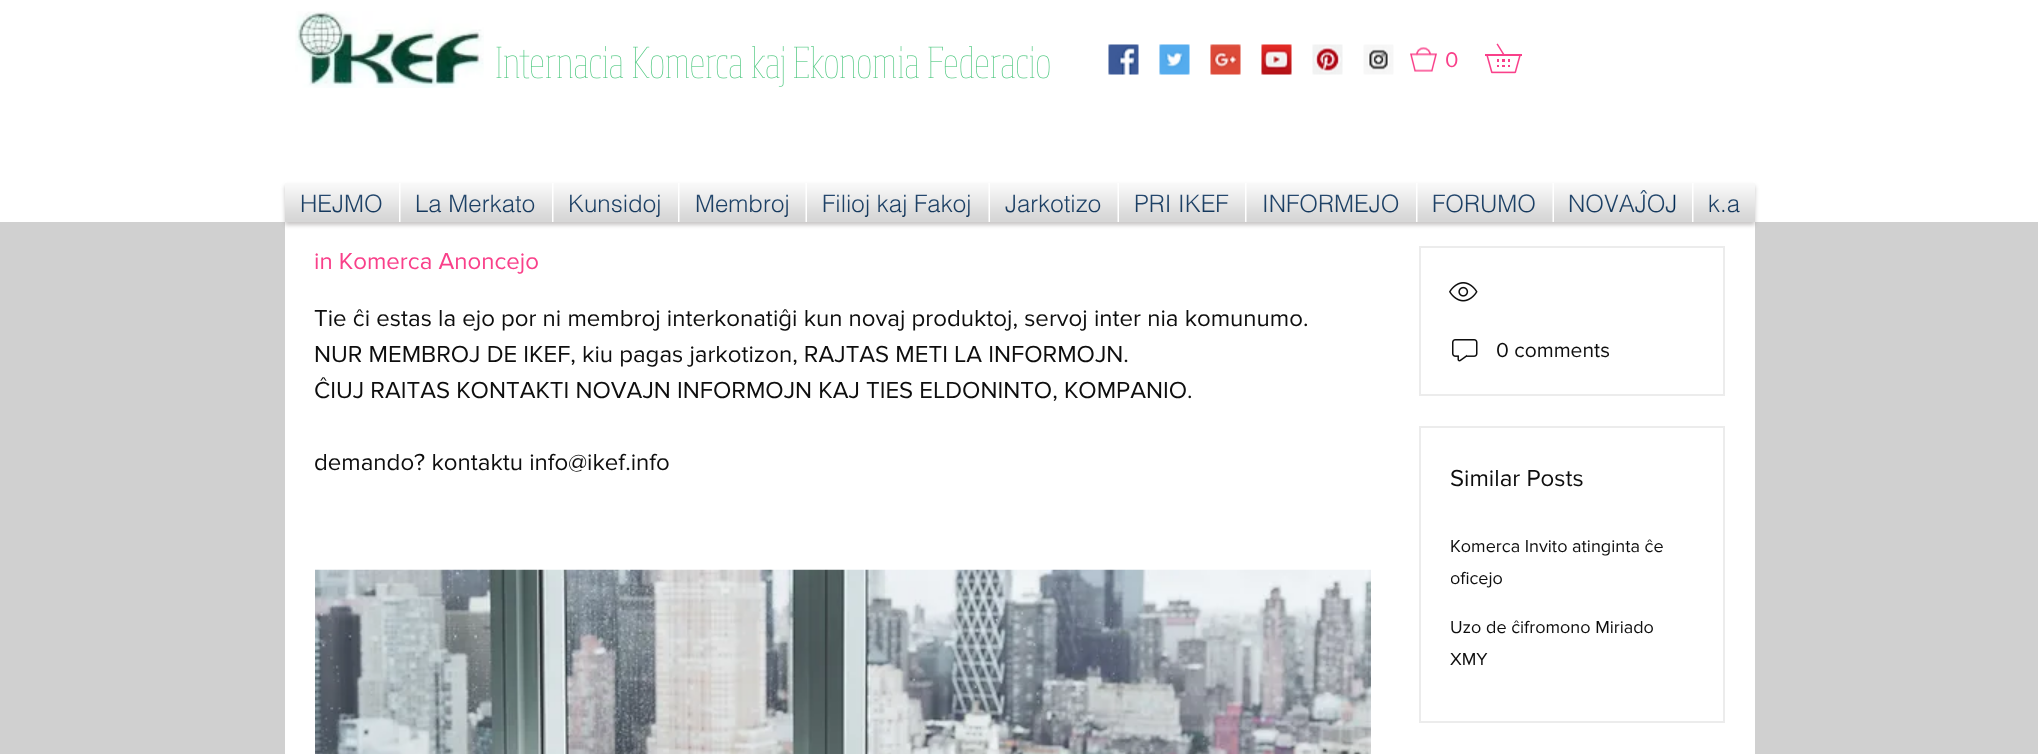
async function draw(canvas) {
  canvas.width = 2038
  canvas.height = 754
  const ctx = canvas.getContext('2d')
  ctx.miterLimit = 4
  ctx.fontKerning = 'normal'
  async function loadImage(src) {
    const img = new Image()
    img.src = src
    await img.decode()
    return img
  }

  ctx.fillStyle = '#d0d0d0'
  ctx.fillRect(0, 0, 2038, 754)
  ctx.fillStyle = '#fff'
  ctx.fillRect(0, 0, 2038, 222)
  ctx.drawImage(await loadImage('image0.png'), 295, 11, 189, 77)
  ctx.drawImage(await loadImage('image1.png'), 496, 46, 554, 41)
  ctx.drawImage(await loadImage('image2.png'), 1108, 44, 31, 31)
  ctx.drawImage(await loadImage('image3.png'), 1159, 44, 31, 31)
  ctx.drawImage(await loadImage('image4.png'), 1210, 44, 31, 31)
  ctx.drawImage(await loadImage('image5.png'), 1261, 44, 31, 31)
  ctx.drawImage(await loadImage('image6.png'), 1312, 44, 31, 31)
  ctx.drawImage(await loadImage('image7.png'), 1363, 44, 31, 31)
  ctx.drawImage(await loadImage('image8.png'), 1410, 47, 27, 25)
  ctx.font = '22px "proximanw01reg"'
  ctx.fillStyle = '#f9408a'
  ctx.fillText('0', 1445, 67)
  ctx.drawImage(await loadImage('image9.png'), 1485, 43, 37, 31)
  ctx.fillStyle = '#fff'
  ctx.fillRect(285, 222, 1470, 532)
  ctx.fillStyle = '#a29e9e99'
  ctx.filter = 'blur(2px)'
  ctx.beginPath()
  ctx.rect(285, 186, 1470, 39)
  ctx.fill()
  ctx.filter = 'none'
  ctx.fillStyle = '#fff'
  ctx.fillRect(285, 183, 1470, 39)
  ctx.font = '300 24px helvetica'
  ctx.fillStyle = '#002e5d'
  ctx.fillText('HEJMO', 300, 212)
  ctx.drawImage(await loadImage('image10.png'), 301, 194, 81, 19)
  ctx.drawImage(await loadImage('image11.png'), 285, 183, 114, 39)
  ctx.fillText('La Merkato', 415, 212)
  ctx.drawImage(await loadImage('image12.png'), 417, 194, 118, 19)
  ctx.drawImage(await loadImage('image13.png'), 400, 183, 152, 39)
  ctx.fillText('Kunsidoj', 568, 212)
  ctx.drawImage(await loadImage('image14.png'), 570, 194, 90, 23)
  ctx.drawImage(await loadImage('image15.png'), 553, 183, 125, 39)
  ctx.fillText('Membroj', 695, 212)
  ctx.drawImage(await loadImage('image16.png'), 696, 194, 92, 23)
  ctx.drawImage(await loadImage('image17.png'), 679, 183, 127, 39)
  ctx.fillText('Filioj kaj Fakoj', 822, 212)
  ctx.drawImage(await loadImage('image18.png'), 824, 194, 146, 23)
  ctx.drawImage(await loadImage('image19.png'), 807, 183, 182, 39)
  ctx.fillText('Jarkotizo', 1005, 212)
  ctx.drawImage(await loadImage('image20.png'), 1005, 194, 95, 19)
  ctx.drawImage(await loadImage('image21.png'), 990, 183, 128, 39)
  ctx.fillText('PRI IKEF', 1134, 212)
  ctx.drawImage(await loadImage('image22.png'), 1135, 194, 94, 18)
  ctx.drawImage(await loadImage('image23.png'), 1119, 183, 126, 39)
  ctx.fillText('INFORMEJO', 1262, 212)
  ctx.drawImage(await loadImage('image24.png'), 1264, 194, 134, 19)
  ctx.drawImage(await loadImage('image25.png'), 1246, 183, 170, 39)
  ctx.fillText('FORUMO', 1432, 212)
  ctx.drawImage(await loadImage('image26.png'), 1434, 194, 101, 19)
  ctx.drawImage(await loadImage('image27.png'), 1417, 183, 136, 39)
  ctx.fillText('NOVAĴOJ', 1568, 212)
  ctx.drawImage(await loadImage('image28.png'), 1570, 190, 104, 23)
  ctx.drawImage(await loadImage('image29.png'), 1554, 183, 138, 39)
  ctx.fillText('k.a', 1708, 212)
  ctx.drawImage(await loadImage('image30.png'), 1709, 194, 31, 19)
  ctx.drawImage(await loadImage('image31.png'), 1693, 183, 62, 39)
  ctx.font = '24px "proximanw01reg"'
  ctx.fillStyle = '#f9408a'
  ctx.fillText('in Komerca Anoncejo', 314, 269)
  ctx.fillStyle = '#0e0e0e'
  ctx.fillText('Tie ĉi estas la ejo por ni membroj interkonatiĝi kun novaj produktoj, servoj inter nia komunumo.', 314, 326)
  ctx.fillText('NUR MEMBROJ DE IKEF, kiu pagas jarkotizon, RAJTAS METI LA INFORMOJN.', 314, 362)
  ctx.fillText('ĈIUJ RAITAS KONTAKTI NOVAJN INFORMOJN KAJ TIES ELDONINTO, KOMPANIO.', 314, 398)
  ctx.fillText('demando? kontaktu info@ikef.info', 314, 470)
  ctx.drawImage(await loadImage('image32.png'), 315, 569, 1056, 185)
  ctx.strokeStyle = '#ececec'
  ctx.lineWidth = 2
  ctx.strokeRect(1420, 247, 304, 148)
  ctx.drawImage(await loadImage('image33.png'), 1449, 282, 29, 20)
  ctx.drawImage(await loadImage('image34.png'), 1452, 339, 26, 23)
  ctx.font = '21px "proximanw01reg"'
  ctx.fillText('0 comments', 1496, 357)
  ctx.strokeRect(1420, 427, 304, 295)
  ctx.font = '24px "proximanw01reg"'
  ctx.fillText('Similar Posts', 1450, 486)
  ctx.font = '18px "proximanw01reg"'
  ctx.fillText('Komerca Invito atinginta ĉe', 1450, 552)
  ctx.save()
  ctx.beginPath()
  ctx.rect(1451, 530, 243, 63)
  ctx.clip()
  ctx.fillText('oficejo', 1450, 584)
  ctx.restore()
  ctx.fillText('Uzo de ĉifromono Miriado', 1450, 633)
  ctx.fillText('XMY', 1450, 665)
}

draw(document.querySelector('canvas'))
